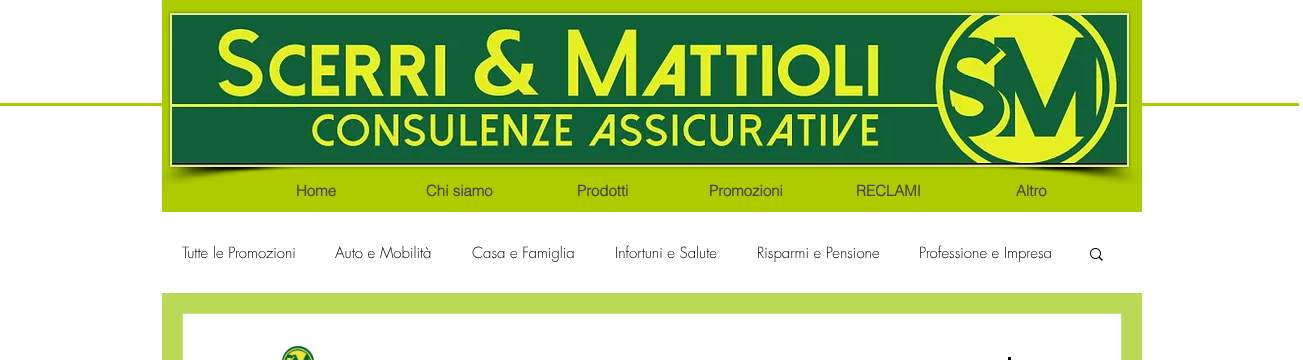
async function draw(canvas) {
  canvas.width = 1303
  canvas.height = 360
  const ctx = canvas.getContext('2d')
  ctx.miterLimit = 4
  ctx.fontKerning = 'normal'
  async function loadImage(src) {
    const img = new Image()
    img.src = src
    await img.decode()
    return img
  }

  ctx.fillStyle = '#fff'
  ctx.fillRect(0, 0, 1303, 360)
  ctx.fillStyle = '#adcc00'
  ctx.fillRect(162, 0, 980, 212)
  ctx.fillRect(0, 103, 1299, 3)
  ctx.fillStyle = '#00000080'
  ctx.filter = 'blur(1.5px)'
  ctx.beginPath()
  ctx.rect(170, 13, 959, 154)
  ctx.fill()
  ctx.filter = 'none'
  ctx.fillStyle = '#e2ed9e'
  ctx.fillRect(170, 13, 959, 154)
  ctx.drawImage(await loadImage('image0.png'), 172, 15, 955, 150)
  ctx.drawImage(await loadImage('image1.png'), 161, 167, 149, 18)
  ctx.drawImage(await loadImage('image2.png'), 989, 167, 149, 18)
  ctx.font = 'bold 15px helvetica'
  ctx.fillStyle = '#444'
  ctx.fillText('Home', 296, 196)
  ctx.fillText('Chi siamo', 426, 196)
  ctx.fillText('Prodotti', 577, 196)
  ctx.fillText('Promozioni', 709, 196)
  ctx.fillText('RECLAMI', 856, 196)
  ctx.fillText('Altro', 1016, 196)
  ctx.fillStyle = '#bada55'
  ctx.fillRect(162, 293, 980, 67)
  ctx.font = '300 15px futura'
  ctx.fillStyle = '#000'
  ctx.fillText('Tutte le Promozioni', 182, 258)
  ctx.fillText('Auto e Mobilità', 335, 258)
  ctx.fillText('Casa e Famiglia', 472, 258)
  ctx.fillText('Infortuni e Salute', 615, 258)
  ctx.fillText('Risparmi e Pensione', 757, 258)
  ctx.fillText('Professione e Impresa', 919, 258)
  ctx.drawImage(await loadImage('image3.png'), 1090, 248, 13, 13)
  ctx.fillStyle = '#fff'
  ctx.beginPath()
  ctx.rect(182.5, 313.5, 939, 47)
  ctx.fill()
  ctx.strokeStyle = '#cbe380'
  ctx.stroke()
  ctx.drawImage(await loadImage('image4.png'), 282, 346, 32, 14)
  ctx.fillStyle = '#000'
  ctx.fillRect(1008, 357, 3, 3)
}

draw(document.querySelector('canvas'))
